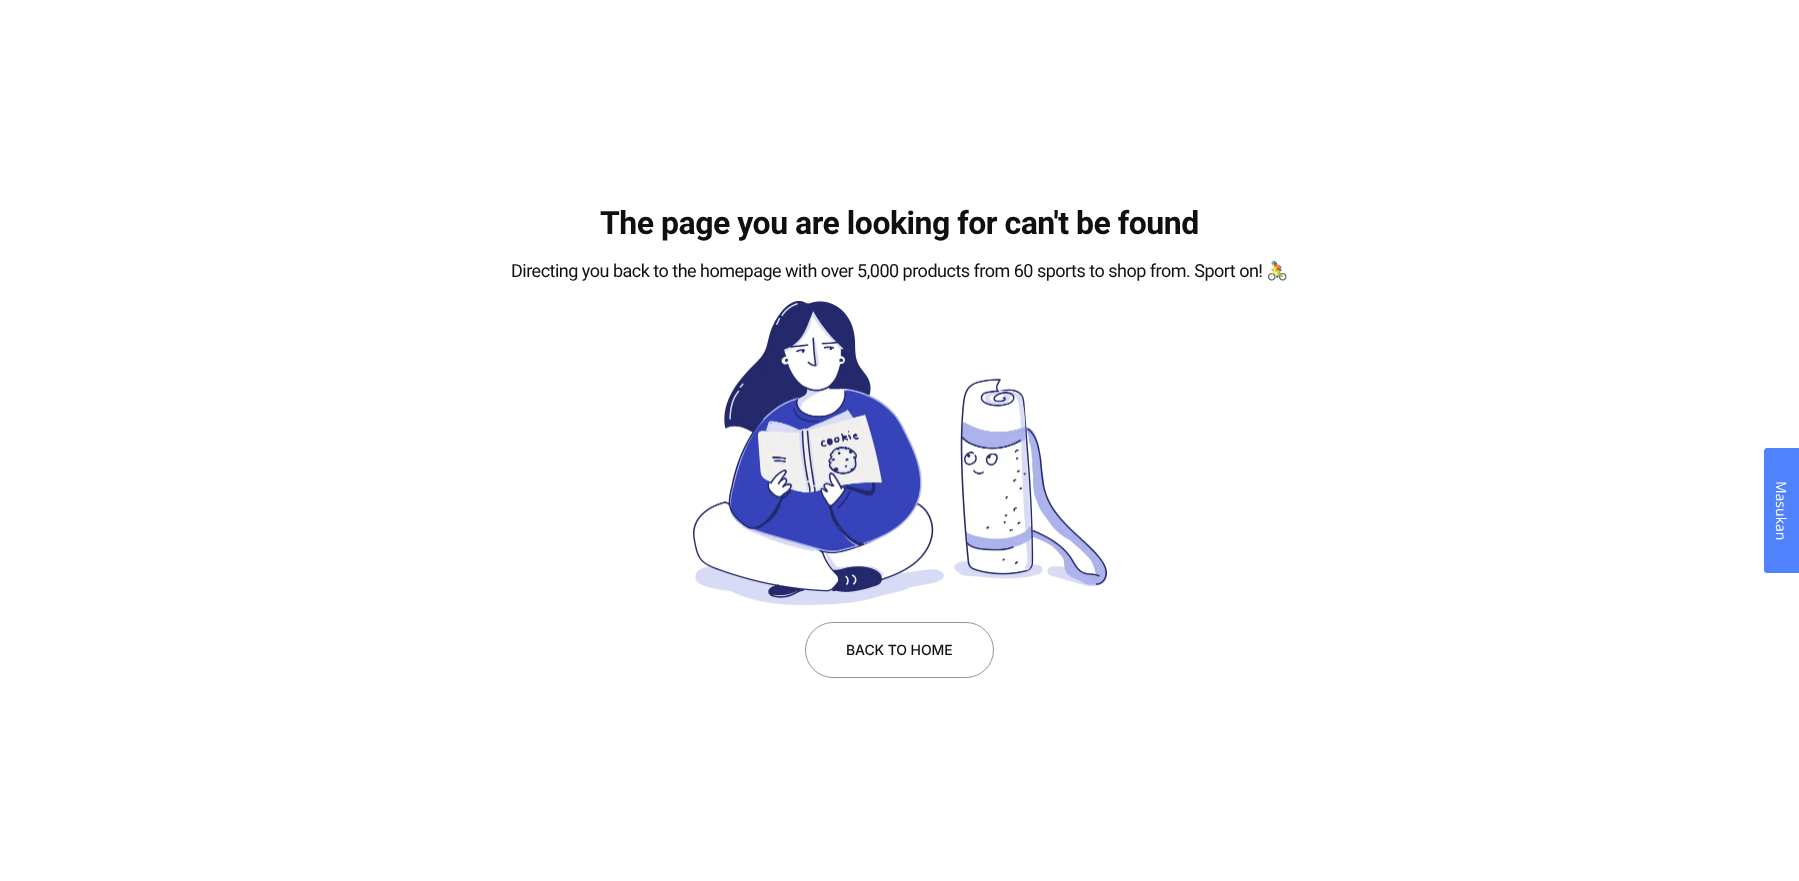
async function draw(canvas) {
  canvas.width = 1799
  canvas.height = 881
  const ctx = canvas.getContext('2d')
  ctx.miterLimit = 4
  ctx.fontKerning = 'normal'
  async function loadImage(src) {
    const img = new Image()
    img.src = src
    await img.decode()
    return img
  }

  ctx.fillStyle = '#fff'
  ctx.fillRect(0, 0, 1799, 881)
  ctx.letterSpacing = '-0.5px'
  ctx.font = 'bold 32px Roboto'
  ctx.fillStyle = '#101010'
  ctx.fillText('The page you are looking for can\'t be found', 600, 234)
  ctx.font = '18px Roboto'
  ctx.fillText('Directing you back to the homepage with over 5,000 products from 60 sports to shop from. Sport on!', 511, 277)
  ctx.font = '18px Noto Color Emoji'
  ctx.fillText('🚴', 1266, 277)
  ctx.drawImage(await loadImage('image0.png'), 693, 301, 414, 304)
  ctx.beginPath()
  ctx.roundRect(805.5, 622.5, 188, 55, 27.5)
  ctx.strokeStyle = '#949494'
  ctx.stroke()
  ctx.letterSpacing = '-0.1px'
  ctx.font = '500 14px Inter'
  ctx.fillText('BACK TO HOME', 846, 655)
  ctx.fillStyle = '#5081ff'
  ctx.beginPath()
  ctx.moveTo(1799, 448)
  ctx.lineTo(1799, 573)
  ctx.lineTo(1767, 573)
  ctx.bezierCurveTo(1765, 573, 1764, 572, 1764, 570)
  ctx.lineTo(1764, 451)
  ctx.bezierCurveTo(1764, 450, 1765, 448, 1767, 448)
  ctx.closePath()
  ctx.fill()
  ctx.letterSpacing = '0px'
  ctx.font = '14px Open Sans'
  ctx.fillStyle = '#fff'
  ctx.save()
  ctx.translate(1776, 481)
  ctx.rotate(90 * Math.PI / 180)
  ctx.fillText('Masukan', 0, 0)
  ctx.restore()
}

draw(document.querySelector('canvas'))
